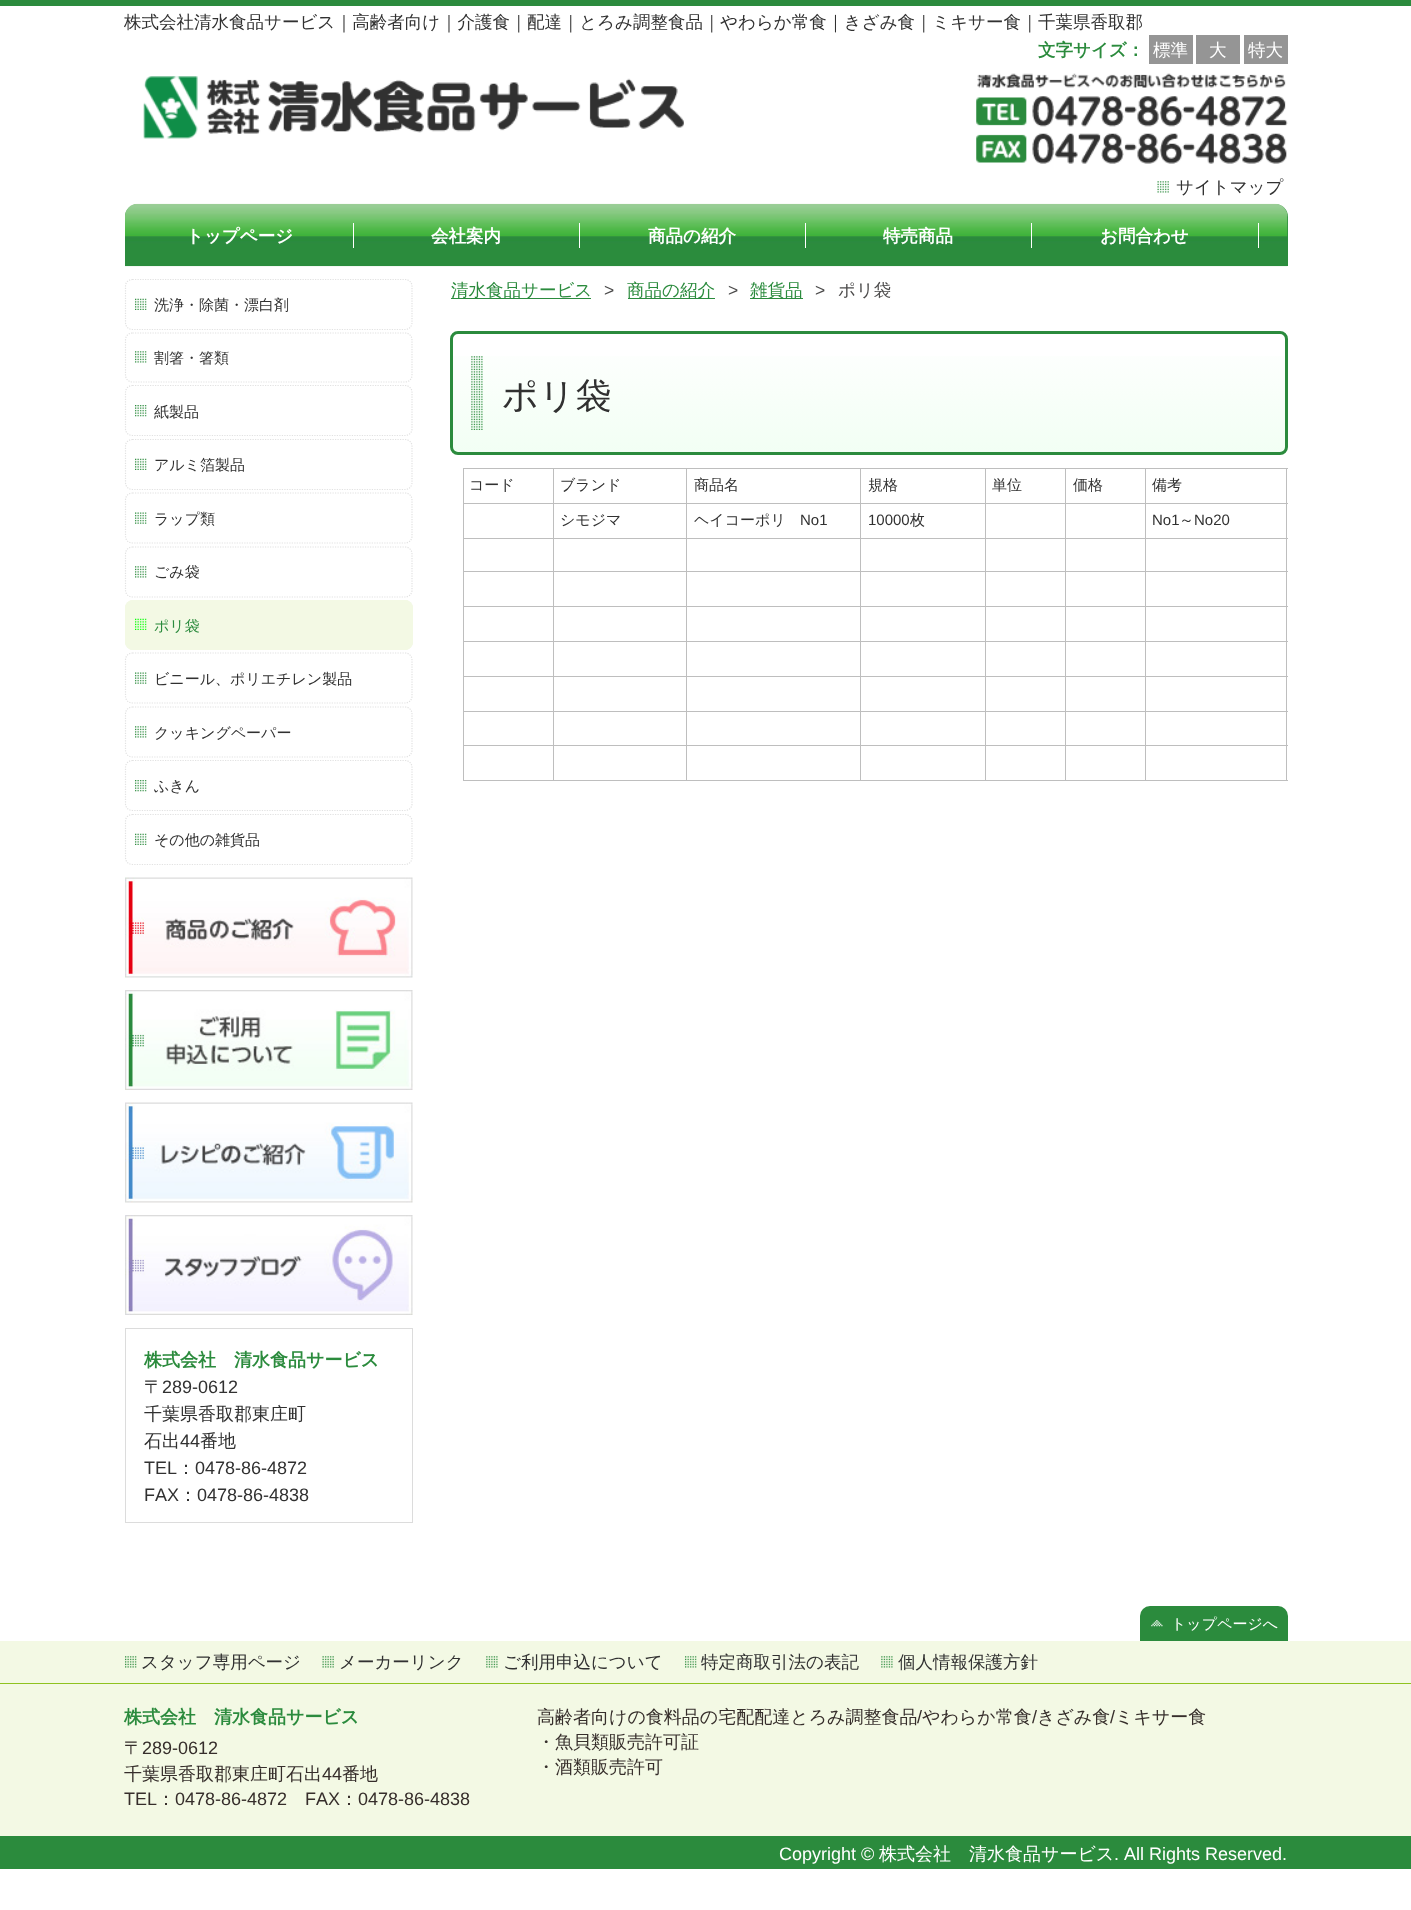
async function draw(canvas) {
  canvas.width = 1411
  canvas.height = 1910
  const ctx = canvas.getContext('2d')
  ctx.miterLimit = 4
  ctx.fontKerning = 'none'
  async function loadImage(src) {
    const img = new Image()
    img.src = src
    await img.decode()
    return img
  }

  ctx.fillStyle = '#fff'
  ctx.fillRect(0, 0, 1411, 1910)
  ctx.fillStyle = '#2b8b3d'
  ctx.fillRect(0, 0, 1411, 6)
  ctx.font = '500 17.5px WenQuanYi Zen Hei'
  ctx.fillStyle = '#313131'
  ctx.fillText('株式会社清水食品サービス｜高齢者向け｜介護食｜配達｜とろみ調整食品｜やわらか常食｜きざみ食｜ミキサー食｜千葉県香取郡', 124, 28)
  ctx.font = 'bold 17.5px WenQuanYi Zen Hei'
  ctx.fillStyle = '#2b8b3d'
  ctx.fillText('文字サイズ：', 1038, 56)
  ctx.fillStyle = '#959595'
  ctx.fillRect(1149, 35, 44, 29)
  ctx.font = '500 17.5px WenQuanYi Zen Hei'
  ctx.fillStyle = '#fff'
  ctx.fillText('標準', 1153, 56)
  ctx.fillStyle = '#959595'
  ctx.fillRect(1196, 35, 44, 29)
  ctx.fillStyle = '#fff'
  ctx.fillText('大', 1209, 56)
  ctx.fillStyle = '#959595'
  ctx.fillRect(1244, 35, 44, 29)
  ctx.fillStyle = '#fff'
  ctx.fillText('特大', 1248, 56)
  ctx.drawImage(await loadImage('image0.png'), 143, 76, 541, 63)
  ctx.drawImage(await loadImage('image1.png'), 976, 73, 312, 91)
  ctx.drawImage(await loadImage('image2.png'), 1157, 181, 12, 12)
  ctx.fillStyle = '#313131'
  ctx.fillText('サイトマップ', 1176, 193)
  ctx.fillStyle = '#2b8b3d'
  ctx.beginPath()
  ctx.roundRect(125, 204, 1163, 62, [13, 13, 0, 0])
  ctx.fill()
  ctx.drawImage(await loadImage('image3.png'), 125, 203, 1163, 64)
  ctx.font = 'bold 17.5px WenQuanYi Zen Hei'
  ctx.fillStyle = '#fff'
  ctx.fillText('トップページ', 186, 242)
  ctx.fillRect(353, 223, 1, 25)
  ctx.fillText('会社案内', 431, 242)
  ctx.fillRect(579, 223, 1, 25)
  ctx.fillText('商品の紹介', 648, 242)
  ctx.fillRect(805, 223, 1, 25)
  ctx.fillText('特売商品', 883, 242)
  ctx.fillRect(1031, 223, 1, 25)
  ctx.fillText('お問合わせ', 1100, 242)
  ctx.fillRect(1258, 223, 1, 25)
  ctx.drawImage(await loadImage('image4.png'), 135, 298, 12, 12)
  ctx.beginPath()
  ctx.moveTo(132.5, 279.5)
  ctx.lineTo(405, 279.5)
  ctx.bezierCurveTo(409, 279.5, 412, 282.5, 412, 286)
  ctx.lineTo(412, 322.5)
  ctx.bezierCurveTo(412, 326.5, 409, 329.5, 405, 329.5)
  ctx.lineTo(132.5, 329.5)
  ctx.bezierCurveTo(128.5, 329.5, 125.5, 326.5, 125.5, 322.5)
  ctx.lineTo(125.5, 286)
  ctx.bezierCurveTo(125.5, 282.5, 128.5, 279.5, 132.5, 279.5)
  ctx.closePath()
  ctx.strokeStyle = '#e2e2e2'
  ctx.lineWidth = 1.2
  ctx.setLineDash([1.25, 1.25])
  ctx.stroke()
  ctx.font = '500 15px WenQuanYi Zen Hei'
  ctx.fillStyle = '#313131'
  ctx.fillText('洗浄・除菌・漂白剤', 154, 310)
  ctx.drawImage(await loadImage('image5.png'), 135, 351, 12, 12)
  ctx.beginPath()
  ctx.moveTo(132.5, 333)
  ctx.lineTo(405, 333)
  ctx.bezierCurveTo(409, 333, 412, 336, 412, 340)
  ctx.lineTo(412, 375)
  ctx.bezierCurveTo(412, 379, 409, 382, 405, 382)
  ctx.lineTo(132.5, 382)
  ctx.bezierCurveTo(128.5, 382, 125.5, 379, 125.5, 375)
  ctx.lineTo(125.5, 340)
  ctx.bezierCurveTo(125.5, 336, 128.5, 333, 132.5, 333)
  ctx.closePath()
  ctx.stroke()
  ctx.fillText('割箸・箸類', 154, 363)
  ctx.drawImage(await loadImage('image6.png'), 135, 405, 12, 12)
  ctx.beginPath()
  ctx.moveTo(132.5, 385.5)
  ctx.lineTo(405, 385.5)
  ctx.bezierCurveTo(409, 385.5, 412, 388.5, 412, 392.5)
  ctx.lineTo(412, 429)
  ctx.bezierCurveTo(412, 432.5, 409, 435.5, 405, 435.5)
  ctx.lineTo(132.5, 435.5)
  ctx.bezierCurveTo(128.5, 435.5, 125.5, 432.5, 125.5, 429)
  ctx.lineTo(125.5, 392.5)
  ctx.bezierCurveTo(125.5, 388.5, 128.5, 385.5, 132.5, 385.5)
  ctx.closePath()
  ctx.stroke()
  ctx.fillText('紙製品', 154, 417)
  ctx.drawImage(await loadImage('image4.png'), 135, 458, 12, 12)
  ctx.beginPath()
  ctx.moveTo(132.5, 439.5)
  ctx.lineTo(405, 439.5)
  ctx.bezierCurveTo(409, 439.5, 412, 442.5, 412, 446)
  ctx.lineTo(412, 482.5)
  ctx.bezierCurveTo(412, 486.5, 409, 489.5, 405, 489.5)
  ctx.lineTo(132.5, 489.5)
  ctx.bezierCurveTo(128.5, 489.5, 125.5, 486.5, 125.5, 482.5)
  ctx.lineTo(125.5, 446)
  ctx.bezierCurveTo(125.5, 442.5, 128.5, 439.5, 132.5, 439.5)
  ctx.closePath()
  ctx.stroke()
  ctx.fillText('アルミ箔製品', 154, 470)
  ctx.drawImage(await loadImage('image7.png'), 135, 512, 12, 12)
  ctx.beginPath()
  ctx.moveTo(132.5, 493)
  ctx.lineTo(405, 493)
  ctx.bezierCurveTo(409, 493, 412, 496, 412, 500)
  ctx.lineTo(412, 536)
  ctx.bezierCurveTo(412, 540, 409, 543, 405, 543)
  ctx.lineTo(132.5, 543)
  ctx.bezierCurveTo(128.5, 543, 125.5, 540, 125.5, 536)
  ctx.lineTo(125.5, 500)
  ctx.bezierCurveTo(125.5, 496, 128.5, 493, 132.5, 493)
  ctx.closePath()
  ctx.stroke()
  ctx.fillText('ラップ類', 154, 524)
  ctx.drawImage(await loadImage('image5.png'), 135, 566, 12, 12)
  ctx.beginPath()
  ctx.moveTo(132.5, 547)
  ctx.lineTo(405, 547)
  ctx.bezierCurveTo(409, 547, 412, 550, 412, 554)
  ctx.lineTo(412, 590)
  ctx.bezierCurveTo(412, 594, 409, 597, 405, 597)
  ctx.lineTo(132.5, 597)
  ctx.bezierCurveTo(128.5, 597, 125.5, 594, 125.5, 590)
  ctx.lineTo(125.5, 554)
  ctx.bezierCurveTo(125.5, 550, 128.5, 547, 132.5, 547)
  ctx.closePath()
  ctx.stroke()
  ctx.fillText('ごみ袋', 154, 577)
  ctx.fillStyle = '#f3f9e4'
  ctx.beginPath()
  ctx.roundRect(125, 600, 288, 50, 8)
  ctx.fill()
  ctx.drawImage(await loadImage('image8.png'), 135, 618, 12, 12)
  ctx.beginPath()
  ctx.roundRect(125.5, 600.5, 287, 49, 7.5)
  ctx.strokeStyle = '#f3f9e4'
  ctx.lineWidth = 1
  ctx.setLineDash([])
  ctx.stroke()
  ctx.fillStyle = '#2b8b3d'
  ctx.fillText('ポリ袋', 154, 631)
  ctx.drawImage(await loadImage('image9.png'), 135, 672, 12, 12)
  ctx.beginPath()
  ctx.moveTo(132.5, 653)
  ctx.lineTo(405, 653)
  ctx.bezierCurveTo(409, 653, 412, 656, 412, 660)
  ctx.lineTo(412, 696)
  ctx.bezierCurveTo(412, 700, 409, 703, 405, 703)
  ctx.lineTo(132.5, 703)
  ctx.bezierCurveTo(128.5, 703, 125.5, 700, 125.5, 696)
  ctx.lineTo(125.5, 660)
  ctx.bezierCurveTo(125.5, 656, 128.5, 653, 132.5, 653)
  ctx.closePath()
  ctx.strokeStyle = '#e2e2e2'
  ctx.lineWidth = 1.2
  ctx.setLineDash([1.25, 1.25])
  ctx.stroke()
  ctx.fillStyle = '#313131'
  ctx.fillText('ビニール、ポリエチレン製品', 154, 684)
  ctx.drawImage(await loadImage('image5.png'), 135, 726, 12, 12)
  ctx.beginPath()
  ctx.moveTo(132.5, 707)
  ctx.lineTo(405, 707)
  ctx.bezierCurveTo(409, 707, 412, 710, 412, 714)
  ctx.lineTo(412, 750)
  ctx.bezierCurveTo(412, 754, 409, 757, 405, 757)
  ctx.lineTo(132.5, 757)
  ctx.bezierCurveTo(128.5, 757, 125.5, 754, 125.5, 750)
  ctx.lineTo(125.5, 714)
  ctx.bezierCurveTo(125.5, 710, 128.5, 707, 132.5, 707)
  ctx.closePath()
  ctx.stroke()
  ctx.fillText('クッキングペーパー', 154, 738)
  ctx.drawImage(await loadImage('image10.png'), 135, 780, 12, 12)
  ctx.beginPath()
  ctx.moveTo(132.5, 760.5)
  ctx.lineTo(405, 760.5)
  ctx.bezierCurveTo(409, 760.5, 412, 763.5, 412, 767.5)
  ctx.lineTo(412, 804)
  ctx.bezierCurveTo(412, 807.5, 409, 810.5, 405, 810.5)
  ctx.lineTo(132.5, 810.5)
  ctx.bezierCurveTo(128.5, 810.5, 125.5, 807.5, 125.5, 804)
  ctx.lineTo(125.5, 767.5)
  ctx.bezierCurveTo(125.5, 763.5, 128.5, 760.5, 132.5, 760.5)
  ctx.closePath()
  ctx.stroke()
  ctx.fillText('ふきん', 154, 791)
  ctx.drawImage(await loadImage('image4.png'), 135, 833, 12, 12)
  ctx.beginPath()
  ctx.moveTo(132.5, 814.5)
  ctx.lineTo(405, 814.5)
  ctx.bezierCurveTo(409, 814.5, 412, 817.5, 412, 821)
  ctx.lineTo(412, 857.5)
  ctx.bezierCurveTo(412, 861.5, 409, 864.5, 405, 864.5)
  ctx.lineTo(132.5, 864.5)
  ctx.bezierCurveTo(128.5, 864.5, 125.5, 861.5, 125.5, 857.5)
  ctx.lineTo(125.5, 821)
  ctx.bezierCurveTo(125.5, 817.5, 128.5, 814.5, 132.5, 814.5)
  ctx.closePath()
  ctx.stroke()
  ctx.fillText('その他の雑貨品', 154, 845)
  ctx.drawImage(await loadImage('image11.png'), 125, 877, 288, 101)
  ctx.drawImage(await loadImage('image12.png'), 125, 990, 288, 100)
  ctx.drawImage(await loadImage('image13.png'), 125, 1102, 288, 101)
  ctx.drawImage(await loadImage('image14.png'), 125, 1215, 288, 100)
  ctx.strokeStyle = '#dcdcdc'
  ctx.lineWidth = 1
  ctx.setLineDash([])
  ctx.strokeRect(125.5, 1328.5, 287, 194)
  ctx.font = 'bold 18px WenQuanYi Zen Hei'
  ctx.fillStyle = '#2b8b3d'
  ctx.fillText('株式会社　清水食品サービス', 144, 1366)
  ctx.font = '500 18px WenQuanYi Zen Hei'
  ctx.fillStyle = '#313131'
  ctx.fillText('〒', 144, 1393)
  ctx.font = '18px Liberation Sans'
  ctx.fillText('289-0612', 162, 1393)
  ctx.font = '500 18px WenQuanYi Zen Hei'
  ctx.fillText('千葉県香取郡東庄町', 144, 1420)
  ctx.fillText('石出', 144, 1447)
  ctx.font = '18px Liberation Sans'
  ctx.fillText('44', 180, 1447)
  ctx.font = '500 18px WenQuanYi Zen Hei'
  ctx.fillText('番地', 200, 1447)
  ctx.font = '18px Liberation Sans'
  ctx.fillText('TEL', 144, 1474)
  ctx.font = '500 18px WenQuanYi Zen Hei'
  ctx.fillText('：', 177, 1474)
  ctx.font = '18px Liberation Sans'
  ctx.fillText('0478-86-4872', 195, 1474)
  ctx.fillText('FAX', 144, 1501)
  ctx.font = '500 18px WenQuanYi Zen Hei'
  ctx.fillText('：', 179, 1501)
  ctx.font = '18px Liberation Sans'
  ctx.fillText('0478-86-4838', 197, 1501)
  ctx.fillStyle = '#2b8b3d'
  ctx.fillRect(451, 298, 140, 1)
  ctx.font = '500 17.5px WenQuanYi Zen Hei'
  ctx.fillText('清水食品サービス', 451, 296)
  ctx.font = '17.5px Liberation Sans'
  ctx.fillStyle = '#4c4b4b'
  ctx.fillText('>', 604, 296)
  ctx.fillStyle = '#2b8b3d'
  ctx.fillRect(628, 298, 87, 1)
  ctx.font = '500 17.5px WenQuanYi Zen Hei'
  ctx.fillText('商品の紹介', 627, 296)
  ctx.font = '17.5px Liberation Sans'
  ctx.fillStyle = '#4c4b4b'
  ctx.fillText('>', 728, 296)
  ctx.fillStyle = '#2b8b3d'
  ctx.fillRect(750, 298, 53, 1)
  ctx.font = '500 17.5px WenQuanYi Zen Hei'
  ctx.fillText('雑貨品', 750, 296)
  ctx.font = '17.5px Liberation Sans'
  ctx.fillStyle = '#4c4b4b'
  ctx.fillText('>', 815, 296)
  ctx.font = '500 17.5px WenQuanYi Zen Hei'
  ctx.fillText('ポリ袋', 838, 296)
  ctx.drawImage(await loadImage('image15.png'), 452, 356, 833, 97)
  ctx.beginPath()
  ctx.roundRect(451.5, 332.5, 835, 121, 6.5)
  ctx.strokeStyle = '#2b8b3d'
  ctx.lineWidth = 3
  ctx.stroke()
  ctx.font = '500 36px WenQuanYi Zen Hei'
  ctx.fillStyle = '#313131'
  ctx.fillText('ポリ袋', 502, 408)
  ctx.fillStyle = '#bebebe'
  ctx.fillRect(1145, 468, 143, 1)
  ctx.fillRect(1145, 503, 143, 1)
  ctx.fillRect(1145, 538, 143, 1)
  ctx.fillRect(1145, 571, 143, 1)
  ctx.fillRect(1145, 606, 143, 1)
  ctx.fillRect(1145, 641, 143, 1)
  ctx.fillRect(1145, 676, 143, 1)
  ctx.fillRect(1145, 711, 143, 1)
  ctx.fillRect(1145, 745, 143, 1)
  ctx.fillRect(1286, 745, 1, 36)
  ctx.fillRect(1145, 780, 143, 1)
  ctx.fillRect(1145, 745, 1, 36)
  ctx.fillRect(1065, 745, 81, 1)
  ctx.fillRect(1145, 711, 1, 35)
  ctx.fillRect(1065, 711, 81, 1)
  ctx.fillRect(1145, 676, 1, 37)
  ctx.fillRect(1065, 676, 81, 1)
  ctx.fillRect(1145, 641, 1, 37)
  ctx.fillRect(1065, 641, 81, 1)
  ctx.fillRect(1145, 606, 1, 37)
  ctx.fillRect(1065, 606, 81, 1)
  ctx.fillRect(1145, 571, 1, 37)
  ctx.fillRect(1065, 571, 81, 1)
  ctx.fillRect(1145, 538, 1, 35)
  ctx.fillRect(1065, 538, 81, 1)
  ctx.fillRect(1145, 503, 1, 36)
  ctx.fillRect(1065, 503, 81, 1)
  ctx.fillRect(1145, 468, 1, 36)
  ctx.fillRect(1065, 468, 81, 1)
  ctx.fillRect(1065, 780, 81, 1)
  ctx.fillRect(1065, 745, 1, 36)
  ctx.fillRect(985, 745, 81, 1)
  ctx.fillRect(1065, 711, 1, 35)
  ctx.fillRect(985, 711, 81, 1)
  ctx.fillRect(1065, 676, 1, 37)
  ctx.fillRect(985, 676, 81, 1)
  ctx.fillRect(1065, 641, 1, 37)
  ctx.fillRect(985, 641, 81, 1)
  ctx.fillRect(1065, 606, 1, 37)
  ctx.fillRect(985, 606, 81, 1)
  ctx.fillRect(1065, 571, 1, 37)
  ctx.fillRect(985, 571, 81, 1)
  ctx.fillRect(1065, 538, 1, 35)
  ctx.fillRect(985, 538, 81, 1)
  ctx.fillRect(1065, 503, 1, 36)
  ctx.fillRect(985, 503, 81, 1)
  ctx.fillRect(1065, 468, 1, 36)
  ctx.fillRect(985, 468, 81, 1)
  ctx.fillRect(985, 780, 81, 1)
  ctx.fillRect(985, 745, 1, 36)
  ctx.fillRect(860, 745, 126, 1)
  ctx.fillRect(985, 711, 1, 35)
  ctx.fillRect(860, 711, 126, 1)
  ctx.fillRect(985, 676, 1, 37)
  ctx.fillRect(860, 676, 126, 1)
  ctx.fillRect(985, 641, 1, 37)
  ctx.fillRect(860, 641, 126, 1)
  ctx.fillRect(985, 606, 1, 37)
  ctx.fillRect(860, 606, 126, 1)
  ctx.fillRect(985, 571, 1, 37)
  ctx.fillRect(860, 571, 126, 1)
  ctx.fillRect(985, 538, 1, 35)
  ctx.fillRect(860, 538, 126, 1)
  ctx.fillRect(985, 503, 1, 36)
  ctx.fillRect(860, 503, 126, 1)
  ctx.fillRect(985, 468, 1, 36)
  ctx.fillRect(860, 468, 126, 1)
  ctx.fillRect(860, 780, 126, 1)
  ctx.fillRect(860, 745, 1, 36)
  ctx.fillRect(686, 745, 175, 1)
  ctx.fillRect(860, 711, 1, 35)
  ctx.fillRect(686, 711, 175, 1)
  ctx.fillRect(860, 676, 1, 37)
  ctx.fillRect(686, 676, 175, 1)
  ctx.fillRect(860, 641, 1, 37)
  ctx.fillRect(686, 641, 175, 1)
  ctx.fillRect(860, 606, 1, 37)
  ctx.fillRect(686, 606, 175, 1)
  ctx.fillRect(860, 571, 1, 37)
  ctx.fillRect(686, 571, 175, 1)
  ctx.fillRect(860, 538, 1, 35)
  ctx.fillRect(686, 538, 175, 1)
  ctx.fillRect(860, 503, 1, 36)
  ctx.fillRect(686, 503, 175, 1)
  ctx.fillRect(860, 468, 1, 36)
  ctx.fillRect(686, 468, 175, 1)
  ctx.fillRect(686, 780, 175, 1)
  ctx.fillRect(686, 745, 1, 36)
  ctx.fillRect(553, 745, 135, 1)
  ctx.fillRect(686, 711, 1, 35)
  ctx.fillRect(553, 711, 135, 1)
  ctx.fillRect(686, 676, 1, 37)
  ctx.fillRect(553, 676, 135, 1)
  ctx.fillRect(686, 641, 1, 37)
  ctx.fillRect(553, 641, 135, 1)
  ctx.fillRect(686, 606, 1, 37)
  ctx.fillRect(553, 606, 135, 1)
  ctx.fillRect(686, 571, 1, 37)
  ctx.fillRect(553, 571, 135, 1)
  ctx.fillRect(686, 538, 1, 35)
  ctx.fillRect(553, 538, 135, 1)
  ctx.fillRect(686, 503, 1, 36)
  ctx.fillRect(553, 503, 135, 1)
  ctx.fillRect(686, 468, 1, 36)
  ctx.fillRect(553, 468, 135, 1)
  ctx.fillRect(553, 780, 135, 1)
  ctx.fillRect(553, 745, 1, 36)
  ctx.fillRect(463, 745, 91, 1)
  ctx.fillRect(553, 711, 1, 35)
  ctx.fillRect(463, 711, 91, 1)
  ctx.fillRect(553, 676, 1, 37)
  ctx.fillRect(463, 676, 91, 1)
  ctx.fillRect(553, 641, 1, 37)
  ctx.fillRect(463, 641, 91, 1)
  ctx.fillRect(553, 606, 1, 37)
  ctx.fillRect(463, 606, 91, 1)
  ctx.fillRect(553, 571, 1, 37)
  ctx.fillRect(463, 571, 91, 1)
  ctx.fillRect(553, 538, 1, 35)
  ctx.fillRect(463, 538, 91, 1)
  ctx.fillRect(553, 503, 1, 36)
  ctx.fillRect(463, 503, 91, 1)
  ctx.fillRect(553, 468, 1, 36)
  ctx.fillRect(463, 468, 91, 1)
  ctx.fillRect(463, 780, 91, 1)
  ctx.fillRect(463, 745, 1, 36)
  ctx.fillRect(463, 711, 1, 35)
  ctx.fillRect(463, 676, 1, 37)
  ctx.fillRect(463, 641, 1, 37)
  ctx.fillRect(463, 606, 1, 37)
  ctx.fillRect(463, 571, 1, 37)
  ctx.fillRect(463, 538, 1, 35)
  ctx.fillRect(463, 503, 1, 36)
  ctx.fillRect(463, 468, 1, 36)
  ctx.font = '500 15px WenQuanYi Zen Hei'
  ctx.fillStyle = '#313131'
  ctx.fillText('コード', 469, 490)
  ctx.fillText('ブランド', 560, 490)
  ctx.fillText('商品名', 694, 490)
  ctx.fillText('規格', 868, 490)
  ctx.fillText('単位', 992, 490)
  ctx.fillText('価格', 1073, 490)
  ctx.fillStyle = '#bebebe'
  ctx.fillRect(1286, 711, 1, 35)
  ctx.fillRect(1286, 676, 1, 37)
  ctx.fillRect(1286, 641, 1, 37)
  ctx.fillRect(1286, 606, 1, 37)
  ctx.fillRect(1286, 571, 1, 37)
  ctx.fillRect(1286, 538, 1, 35)
  ctx.fillRect(1286, 503, 1, 36)
  ctx.fillRect(1286, 468, 1, 36)
  ctx.fillStyle = '#313131'
  ctx.fillText('備考', 1152, 490)
  ctx.fillText('シモジマ', 560, 525)
  ctx.fillText('ヘイコーポリ', 694, 525)
  ctx.font = '15px Liberation Sans'
  ctx.fillText('No1', 800, 525)
  ctx.fillText('10000', 868, 525)
  ctx.font = '500 15px WenQuanYi Zen Hei'
  ctx.fillText('枚', 910, 525)
  ctx.font = '15px Liberation Sans'
  ctx.fillText('No1', 1152, 525)
  ctx.font = '500 15px WenQuanYi Zen Hei'
  ctx.fillText('～', 1179, 525)
  ctx.font = '15px Liberation Sans'
  ctx.fillText('No20', 1194, 525)
  ctx.fillStyle = '#2b8b3d'
  ctx.beginPath()
  ctx.roundRect(1140, 1606, 148, 35, [10, 10, 0, 0])
  ctx.fill()
  ctx.drawImage(await loadImage('image16.png'), 1151, 1620, 12, 7)
  ctx.font = '500 15px WenQuanYi Zen Hei'
  ctx.fillStyle = '#fff'
  ctx.fillText('トップページへ', 1171, 1629)
  ctx.fillStyle = '#2b8b3d'
  ctx.fillRect(0, 1836, 1411, 33)
  ctx.fillStyle = '#f3f9e4'
  ctx.fillRect(0, 1641, 1411, 195)
  ctx.drawImage(await loadImage('image17.png'), 125, 1656, 12, 12)
  ctx.font = '500 17.5px WenQuanYi Zen Hei'
  ctx.fillStyle = '#313131'
  ctx.fillText('スタッフ専用ページ', 141, 1668)
  ctx.drawImage(await loadImage('image18.png'), 322, 1656, 12, 12)
  ctx.fillText('メーカーリンク', 339, 1668)
  ctx.drawImage(await loadImage('image19.png'), 486, 1656, 12, 12)
  ctx.fillText('ご利用申込について', 503, 1668)
  ctx.drawImage(await loadImage('image20.png'), 685, 1656, 12, 12)
  ctx.fillText('特定商取引法の表記', 701, 1668)
  ctx.drawImage(await loadImage('image19.png'), 881, 1656, 12, 12)
  ctx.fillText('個人情報保護方針', 898, 1668)
  ctx.fillStyle = '#8fc31f'
  ctx.fillRect(0, 1683, 1411, 1)
  ctx.font = 'bold 18px WenQuanYi Zen Hei'
  ctx.fillStyle = '#2b8b3d'
  ctx.fillText('株式会社　清水食品サービス', 124, 1723)
  ctx.font = '500 18px WenQuanYi Zen Hei'
  ctx.fillStyle = '#362e2b'
  ctx.fillText('〒', 124, 1754)
  ctx.font = '18px Liberation Sans'
  ctx.fillText('289-0612', 142, 1754)
  ctx.font = '500 18px WenQuanYi Zen Hei'
  ctx.fillText('千葉県香取郡東庄町石出', 124, 1780)
  ctx.font = '18px Liberation Sans'
  ctx.fillText('44', 322, 1780)
  ctx.font = '500 18px WenQuanYi Zen Hei'
  ctx.fillText('番地', 342, 1780)
  ctx.font = '18px Liberation Sans'
  ctx.fillText('TEL', 124, 1805)
  ctx.font = '500 18px WenQuanYi Zen Hei'
  ctx.fillText('：', 157, 1805)
  ctx.font = '18px Liberation Sans'
  ctx.fillText('0478-86-4872', 175, 1805)
  ctx.fillText('FAX', 305, 1805)
  ctx.font = '500 18px WenQuanYi Zen Hei'
  ctx.fillText('：', 340, 1805)
  ctx.font = '18px Liberation Sans'
  ctx.fillText('0478-86-4838', 358, 1805)
  ctx.font = '500 18px WenQuanYi Zen Hei'
  ctx.fillText('高齢者向けの食料品の宅配配達とろみ調整食品', 537, 1723)
  ctx.font = '18px Liberation Sans'
  ctx.fillText('/', 917, 1723)
  ctx.font = '500 18px WenQuanYi Zen Hei'
  ctx.fillText('やわらか常食', 922, 1723)
  ctx.font = '18px Liberation Sans'
  ctx.fillText('/', 1032, 1723)
  ctx.font = '500 18px WenQuanYi Zen Hei'
  ctx.fillText('きざみ食', 1037, 1723)
  ctx.font = '18px Liberation Sans'
  ctx.fillText('/', 1110, 1723)
  ctx.font = '500 18px WenQuanYi Zen Hei'
  ctx.fillText('ミキサー食', 1115, 1723)
  ctx.fillText('・魚貝類販売許可証', 537, 1748)
  ctx.fillText('・酒類販売許可', 537, 1773)
  ctx.font = '18px Liberation Sans'
  ctx.fillStyle = '#fff'
  ctx.fillText('Copyright ©', 779, 1860)
  ctx.font = '500 18px WenQuanYi Zen Hei'
  ctx.fillText('株式会社　清水食品サービス', 879, 1860)
  ctx.font = '18px Liberation Sans'
  ctx.fillText('. All Rights Reserved.', 1114, 1860)
}

draw(document.querySelector('canvas'))
